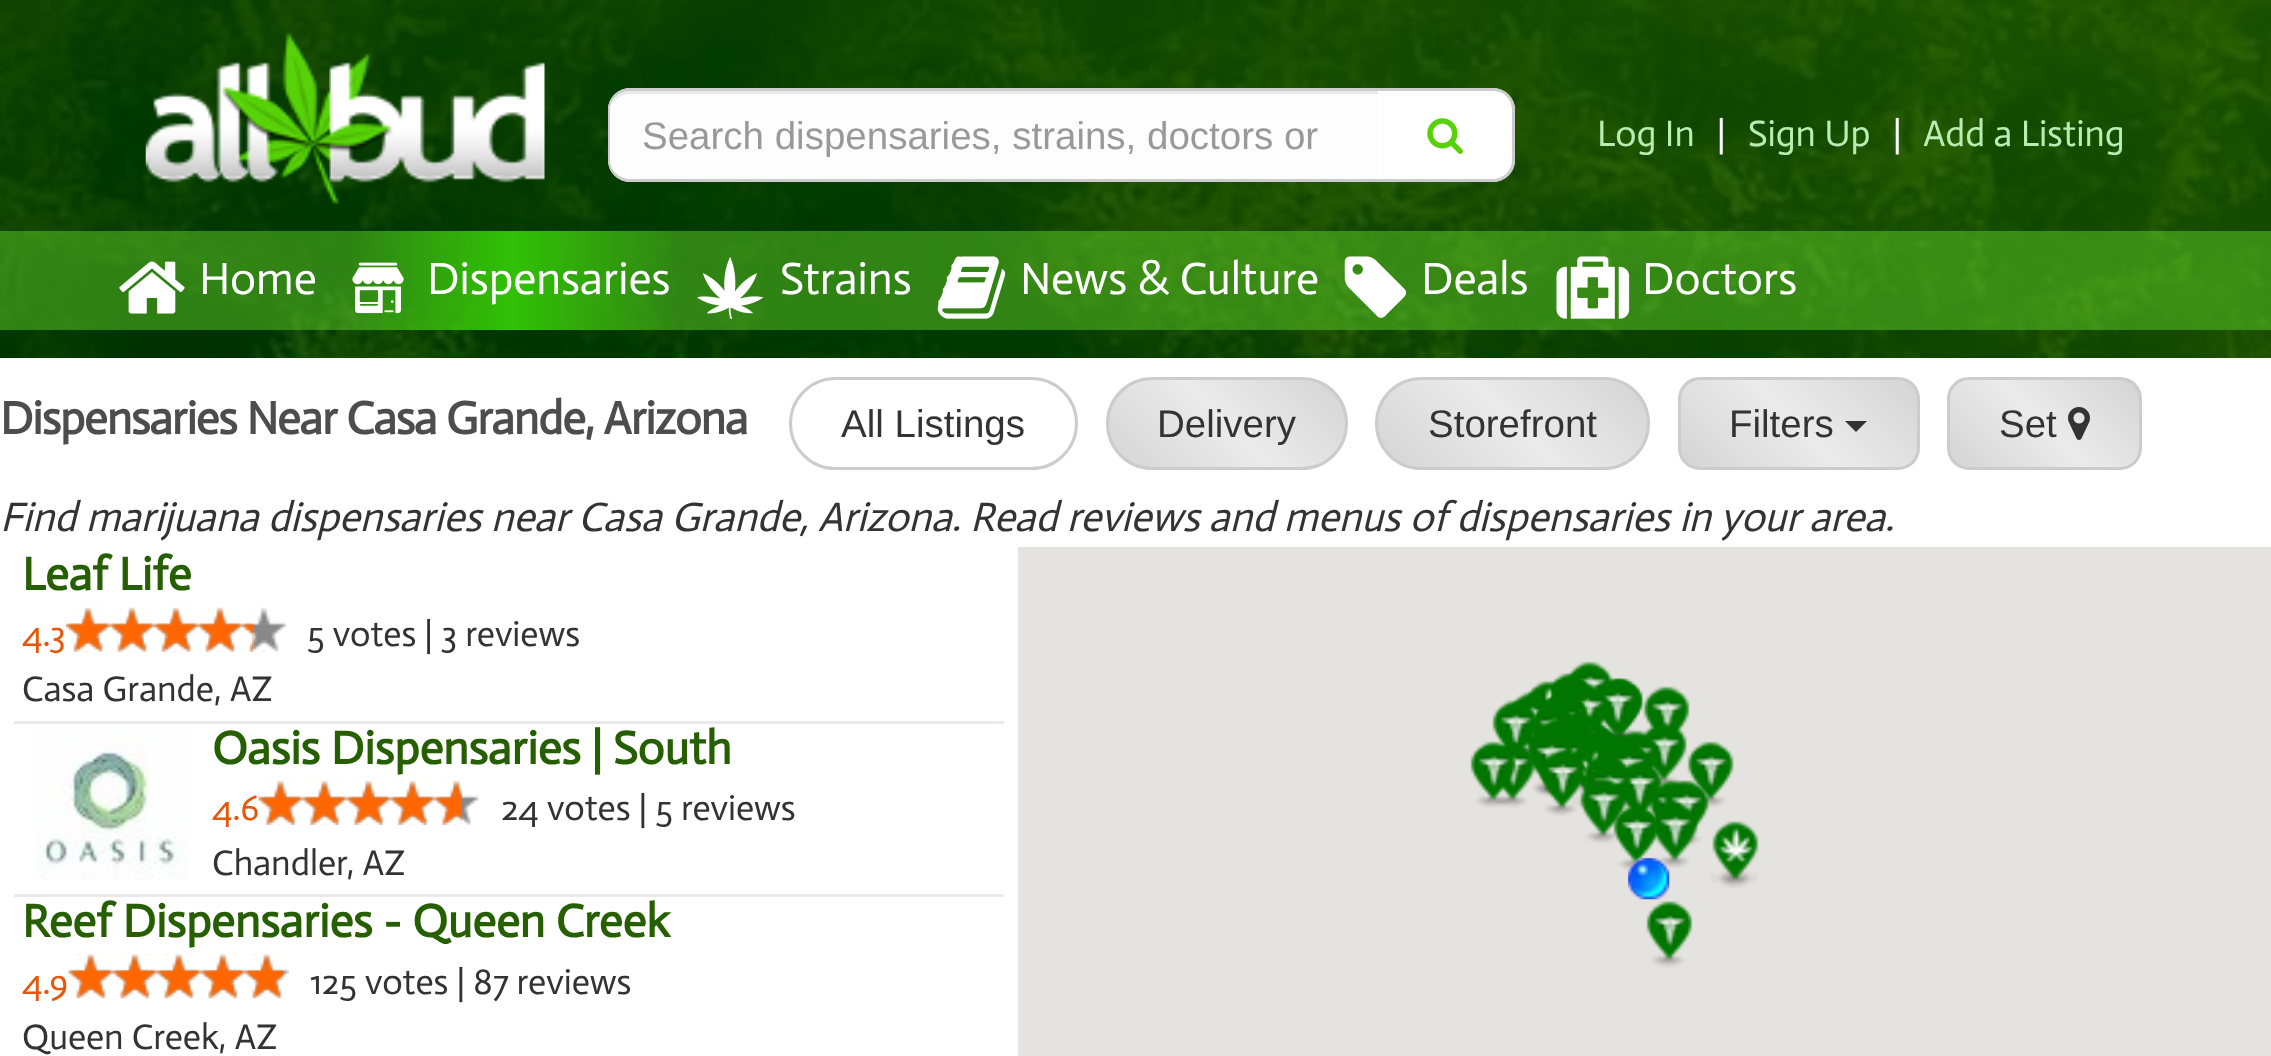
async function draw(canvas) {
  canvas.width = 2271
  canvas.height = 1056
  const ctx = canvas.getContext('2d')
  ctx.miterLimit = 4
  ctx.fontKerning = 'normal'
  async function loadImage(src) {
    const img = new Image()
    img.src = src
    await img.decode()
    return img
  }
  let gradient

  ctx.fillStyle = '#fff'
  ctx.fillRect(0, 0, 2271, 1056)
  ctx.drawImage(await loadImage('image0.png'), 0, 0, 2271, 358)
  ctx.drawImage(await loadImage('image1.png'), 145, 33, 400, 171)
  ctx.fillStyle = '#fdfdfd'
  ctx.beginPath()
  ctx.roundRect(608, 88, 773, 94, [22, 0, 0, 22])
  ctx.fill()
  ctx.fillStyle = '#eaeaea'
  ctx.beginPath()
  ctx.moveTo(630, 94)
  ctx.lineTo(1380, 94)
  ctx.lineTo(1380, 179)
  ctx.lineTo(1381, 179)
  ctx.lineTo(1381, 91)
  ctx.lineTo(630, 91)
  ctx.bezierCurveTo(621, 91, 614, 97, 612, 105)
  ctx.bezierCurveTo(615, 99, 622, 94, 630, 94)
  ctx.closePath()
  ctx.fill()
  ctx.fillStyle = '#ccc'
  ctx.beginPath()
  ctx.moveTo(630, 88)
  ctx.lineTo(1380, 88)
  ctx.lineTo(1380, 182)
  ctx.lineTo(630, 182)
  ctx.bezierCurveTo(618, 182, 608, 172, 608, 160)
  ctx.lineTo(608, 110)
  ctx.bezierCurveTo(608, 98, 618, 88, 630, 88)
  ctx.closePath()
  ctx.moveTo(630, 91)
  ctx.lineTo(1380, 91)
  ctx.lineTo(1380, 179)
  ctx.lineTo(630, 179)
  ctx.bezierCurveTo(619, 179, 610, 170, 610, 160)
  ctx.lineTo(610, 110)
  ctx.bezierCurveTo(610, 99, 619, 91, 630, 91)
  ctx.closePath()
  ctx.fill('evenodd')
  ctx.font = '38.5px Liberation Sans'
  ctx.fillStyle = '#999'
  ctx.fillText('Search dispensaries, strains, doctors or', 642, 149)
  ctx.fillStyle = '#fff'
  ctx.beginPath()
  ctx.roundRect(1378, 88, 137, 94, [0, 22, 22, 0])
  ctx.fill()
  ctx.fillStyle = '#ccc'
  ctx.beginPath()
  ctx.moveTo(1378, 88)
  ctx.lineTo(1493, 88)
  ctx.bezierCurveTo(1505, 88, 1515, 98, 1515, 110)
  ctx.lineTo(1515, 160)
  ctx.bezierCurveTo(1515, 172, 1505, 182, 1493, 182)
  ctx.lineTo(1378, 182)
  ctx.closePath()
  ctx.moveTo(1378, 91)
  ctx.lineTo(1493, 91)
  ctx.bezierCurveTo(1504, 91, 1512, 99, 1512, 110)
  ctx.lineTo(1512, 160)
  ctx.bezierCurveTo(1512, 170, 1504, 179, 1493, 179)
  ctx.lineTo(1378, 179)
  ctx.closePath()
  ctx.fill('evenodd')
  ctx.drawImage(await loadImage('image2.png'), 1427, 118, 36, 36)
  ctx.font = '37px Actor'
  ctx.fillStyle = '#b7eeb3'
  ctx.fillText('Log In', 1597, 146)
  ctx.fillStyle = '#fff'
  ctx.fillText('|', 1717, 146)
  ctx.fillStyle = '#b7eeb3'
  ctx.fillText('Sign Up', 1748, 146)
  ctx.fillStyle = '#fff'
  ctx.fillText('|', 1893, 146)
  ctx.fillStyle = '#b7eeb3'
  ctx.fillText('Add a Listing', 1923, 146)
  ctx.fillStyle = '#5ecd2780'
  ctx.fillRect(0, 231, 2271, 99)
  ctx.drawImage(await loadImage('image3.png'), 119, 261, 66, 53)
  ctx.font = '45.5px Actor'
  ctx.fillStyle = '#fff'
  ctx.fillText('Home', 199, 294)
  gradient = ctx.createLinearGradient(344, 281, 682, 281)
  gradient.addColorStop(0, '#31c10500')
  gradient.addColorStop(0.5, '#31c105')
  gradient.addColorStop(1, '#31c10500')
  ctx.fillStyle = gradient
  ctx.fillRect(351, 231, 324, 99)
  ctx.drawImage(await loadImage('image4.png'), 352, 262, 52, 52)
  ctx.fillStyle = '#fff'
  ctx.fillText('Dispensaries', 427, 294)
  ctx.drawImage(await loadImage('image5.png'), 697, 257, 67, 63)
  ctx.fillText('Strains', 780, 294)
  ctx.drawImage(await loadImage('image6.png'), 937, 256, 69, 63)
  ctx.fillText('News & Culture', 1020, 294)
  ctx.drawImage(await loadImage('image7.png'), 1344, 256, 63, 62)
  ctx.fillText('Deals', 1421, 294)
  ctx.drawImage(await loadImage('image8.png'), 1556, 256, 74, 63)
  ctx.fillText('Doctors', 1642, 294)
  ctx.letterSpacing = '-0.95px'
  ctx.font = 'bold 46.4px Actor'
  ctx.fillStyle = '#4d4d4d'
  ctx.fillText('Dispensaries Near Casa Grande, Arizona', 0, 434)
  ctx.beginPath()
  ctx.roundRect(790.5, 378.5, 286, 90, 45)
  ctx.strokeStyle = '#ccc'
  ctx.lineWidth = 3
  ctx.stroke()
  ctx.letterSpacing = '0px'
  ctx.font = '38.5px Liberation Sans'
  ctx.fillStyle = '#333'
  ctx.fillText('All Listings', 841, 437)
  ctx.save()
  ctx.beginPath()
  ctx.roundRect(1106, 377, 242, 93, 46.5)
  ctx.clip()
  gradient = ctx.createLinearGradient(1145, 505, 1308, 342)
  gradient.addColorStop(0, '#d4d4d4')
  gradient.addColorStop(0.5, '#ebebeb')
  gradient.addColorStop(1, '#d4d4d4')
  ctx.fillStyle = gradient
  ctx.fillRect(1108, 380, 237, 88)
  ctx.restore()
  ctx.beginPath()
  ctx.roundRect(1107.5, 378.5, 239, 90, 45)
  ctx.stroke()
  ctx.fillText('Delivery', 1157, 437)
  ctx.save()
  ctx.beginPath()
  ctx.roundRect(1375, 377, 275, 93, 46.5)
  ctx.clip()
  gradient = ctx.createLinearGradient(1423, 513, 1602, 334)
  gradient.addColorStop(0, '#d4d4d4')
  gradient.addColorStop(0.5, '#ebebeb')
  gradient.addColorStop(1, '#d4d4d4')
  ctx.fillStyle = gradient
  ctx.fillRect(1378, 380, 269, 88)
  ctx.restore()
  ctx.beginPath()
  ctx.roundRect(1376.5, 378.5, 272, 90, 45)
  ctx.stroke()
  ctx.fillText('Storefront', 1428, 437)
  ctx.save()
  ctx.beginPath()
  ctx.roundRect(1678, 377, 242, 93, 22)
  ctx.clip()
  gradient = ctx.createLinearGradient(1717, 505, 1880, 342)
  gradient.addColorStop(0, '#d4d4d4')
  gradient.addColorStop(0.5, '#ebebeb')
  gradient.addColorStop(1, '#d4d4d4')
  ctx.fillStyle = gradient
  ctx.fillRect(1680, 380, 237, 88)
  ctx.restore()
  ctx.beginPath()
  ctx.roundRect(1679.5, 378.5, 239, 90, 20.5)
  ctx.stroke()
  ctx.fillText('Filters', 1729, 437)
  ctx.beginPath()
  ctx.moveTo(1845, 421)
  ctx.lineTo(1867, 421)
  ctx.lineTo(1856, 432)
  ctx.closePath()
  ctx.fill()
  ctx.save()
  ctx.beginPath()
  ctx.roundRect(1947, 377, 195, 93, 22)
  ctx.clip()
  gradient = ctx.createLinearGradient(1975, 493, 2114, 354)
  gradient.addColorStop(0, '#d4d4d4')
  gradient.addColorStop(0.5, '#ebebeb')
  gradient.addColorStop(1, '#d4d4d4')
  ctx.fillStyle = gradient
  ctx.fillRect(1950, 380, 190, 88)
  ctx.restore()
  ctx.beginPath()
  ctx.roundRect(1948.5, 378.5, 192, 90, 20.5)
  ctx.stroke()
  ctx.fillText('Set', 1999, 437)
  ctx.drawImage(await loadImage('image9.png'), 2068, 407, 22, 33)
  ctx.font = 'italic 41.25px Actor'
  ctx.fillText('Find marijuana dispensaries near Casa Grande, Arizona. Read reviews and menus of dispensaries in your area.', 0, 531)
  ctx.fillStyle = '#ebe9e9'
  ctx.fillRect(14, 721, 990, 3)
  ctx.font = 'bold 46.75px Actor'
  ctx.fillStyle = '#265f00'
  ctx.fillText('Leaf Life', 22, 590)
  ctx.font = '35.75px Actor'
  ctx.fillStyle = '#e6560b'
  ctx.fillText('4.3', 22, 646)
  ctx.drawImage(await loadImage('image10.png'), 66, 607, 220, 45)
  ctx.drawImage(await loadImage('image11.png'), 66, 607, 187, 45)
  ctx.fillStyle = '#333'
  ctx.fillText('5 votes | 3 reviews', 307, 646)
  ctx.fillText('Casa Grande, AZ', 22, 701)
  ctx.fillStyle = '#ebe9e9'
  ctx.fillRect(14, 894, 990, 3)
  ctx.drawImage(await loadImage('image12.png'), 36, 726, 153, 155)
  ctx.font = 'bold 46.75px Actor'
  ctx.fillStyle = '#265f00'
  ctx.fillText('Oasis Dispensaries | South', 212, 764)
  ctx.font = '35.75px Actor'
  ctx.fillStyle = '#e6560b'
  ctx.fillText('4.6', 212, 820)
  ctx.drawImage(await loadImage('image13.png'), 258, 781, 221, 44)
  ctx.drawImage(await loadImage('image14.png'), 258, 781, 204, 44)
  ctx.fillStyle = '#333'
  ctx.fillText('24 votes | 5 reviews', 501, 820)
  ctx.fillText('Chandler, AZ', 212, 875)
  ctx.font = 'bold 46.75px Actor'
  ctx.fillStyle = '#265f00'
  ctx.fillText('Reef Dispensaries - Queen Creek', 22, 937)
  ctx.font = '35.75px Actor'
  ctx.fillStyle = '#e6560b'
  ctx.fillText('4.9', 22, 994)
  ctx.drawImage(await loadImage('image15.png'), 68, 954, 221, 45)
  ctx.drawImage(await loadImage('image16.png'), 68, 954, 216, 45)
  ctx.fillStyle = '#333'
  ctx.fillText('125 votes | 87 reviews', 310, 994)
  ctx.fillText('Queen Creek, AZ', 22, 1049)
  ctx.fillStyle = '#e5e3df'
  ctx.fillRect(1018, 547, 1253, 509)
  ctx.drawImage(await loadImage('image17.png'), 1566, 661, 47, 66)
  ctx.drawImage(await loadImage('image18.png'), 1548, 673, 46, 18)
  ctx.drawImage(await loadImage('image20.png'), 1597, 678, 46, 63)
  ctx.drawImage(await loadImage('image23.png'), 1597, 678, 46, 63)
  ctx.drawImage(await loadImage('image19.png'), 1594, 678, 46, 63)
  ctx.drawImage(await loadImage('image25.png'), 1553, 685, 34, 14)
  ctx.drawImage(await loadImage('image21.png'), 1525, 680, 47, 64)
  ctx.drawImage(await loadImage('image22.png'), 1565, 683, 46, 47)
  ctx.drawImage(await loadImage('image29.png'), 1544, 695, 44, 24)
  ctx.drawImage(await loadImage('image31.png'), 1544, 695, 44, 24)
  ctx.drawImage(await loadImage('image24.png'), 1508, 691, 44, 67)
  ctx.drawImage(await loadImage('image26.png'), 1643, 686, 47, 49)
  ctx.drawImage(await loadImage('image27.png'), 1536, 695, 45, 24)
  ctx.drawImage(await loadImage('image28.png'), 1536, 695, 45, 24)
  ctx.drawImage(await loadImage('image30.png'), 1492, 700, 46, 52)
  ctx.drawImage(await loadImage('image32.png'), 1533, 707, 41, 34)
  ctx.drawImage(await loadImage('image33.png'), 1561, 711, 44, 19)
  ctx.drawImage(await loadImage('image35.png'), 1547, 718, 38, 12)
  ctx.drawImage(await loadImage('image34.png'), 1536, 717, 44, 62)
  ctx.drawImage(await loadImage('image36.png'), 1570, 722, 43, 64)
  ctx.drawImage(await loadImage('image37.png'), 1641, 722, 46, 66)
  ctx.drawImage(await loadImage('image39.png'), 1547, 729, 41, 58)
  ctx.drawImage(await loadImage('image38.png'), 1578, 725, 43, 65)
  ctx.drawImage(await loadImage('image40.png'), 1573, 726, 42, 66)
  ctx.drawImage(await loadImage('image41.png'), 1618, 730, 42, 41)
  ctx.drawImage(await loadImage('image44.png'), 1556, 734, 34, 57)
  ctx.drawImage(await loadImage('image42.png'), 1527, 731, 47, 63)
  ctx.drawImage(await loadImage('image43.png'), 1574, 731, 42, 63)
  ctx.drawImage(await loadImage('image45.png'), 1577, 732, 39, 62)
  ctx.drawImage(await loadImage('image46.png'), 1599, 733, 45, 66)
  ctx.drawImage(await loadImage('image48.png'), 1541, 737, 44, 59)
  ctx.drawImage(await loadImage('image50.png'), 1527, 742, 47, 55)
  ctx.drawImage(await loadImage('image49.png'), 1495, 741, 41, 67)
  ctx.drawImage(await loadImage('image47.png'), 1470, 741, 47, 67)
  ctx.drawImage(await loadImage('image52.png'), 1605, 745, 41, 60)
  ctx.drawImage(await loadImage('image51.png'), 1577, 743, 41, 60)
  ctx.drawImage(await loadImage('image53.png'), 1687, 741, 47, 67)
  ctx.drawImage(await loadImage('image56.png'), 1606, 745, 45, 63)
  ctx.drawImage(await loadImage('image55.png'), 1571, 750, 47, 61)
  ctx.drawImage(await loadImage('image54.png'), 1539, 750, 46, 66)
  ctx.drawImage(await loadImage('image57.png'), 1583, 753, 46, 65)
  ctx.drawImage(await loadImage('image58.png'), 1619, 761, 44, 60)
  ctx.drawImage(await loadImage('image59.png'), 1586, 765, 47, 62)
  ctx.drawImage(await loadImage('image60.png'), 1580, 777, 47, 67)
  ctx.drawImage(await loadImage('image61.png'), 1649, 780, 40, 66)
  ctx.drawImage(await loadImage('image62.png'), 1663, 780, 46, 66)
  ctx.drawImage(await loadImage('image64.png'), 1652, 801, 47, 67)
  ctx.drawImage(await loadImage('image63.png'), 1613, 805, 46, 66)
  ctx.drawImage(await loadImage('image65.png'), 1711, 821, 48, 67)
  ctx.drawImage(await loadImage('image66.png'), 1627, 857, 43, 43)
  ctx.drawImage(await loadImage('image67.png'), 1646, 901, 47, 67)
}

draw(document.querySelector('canvas'))
